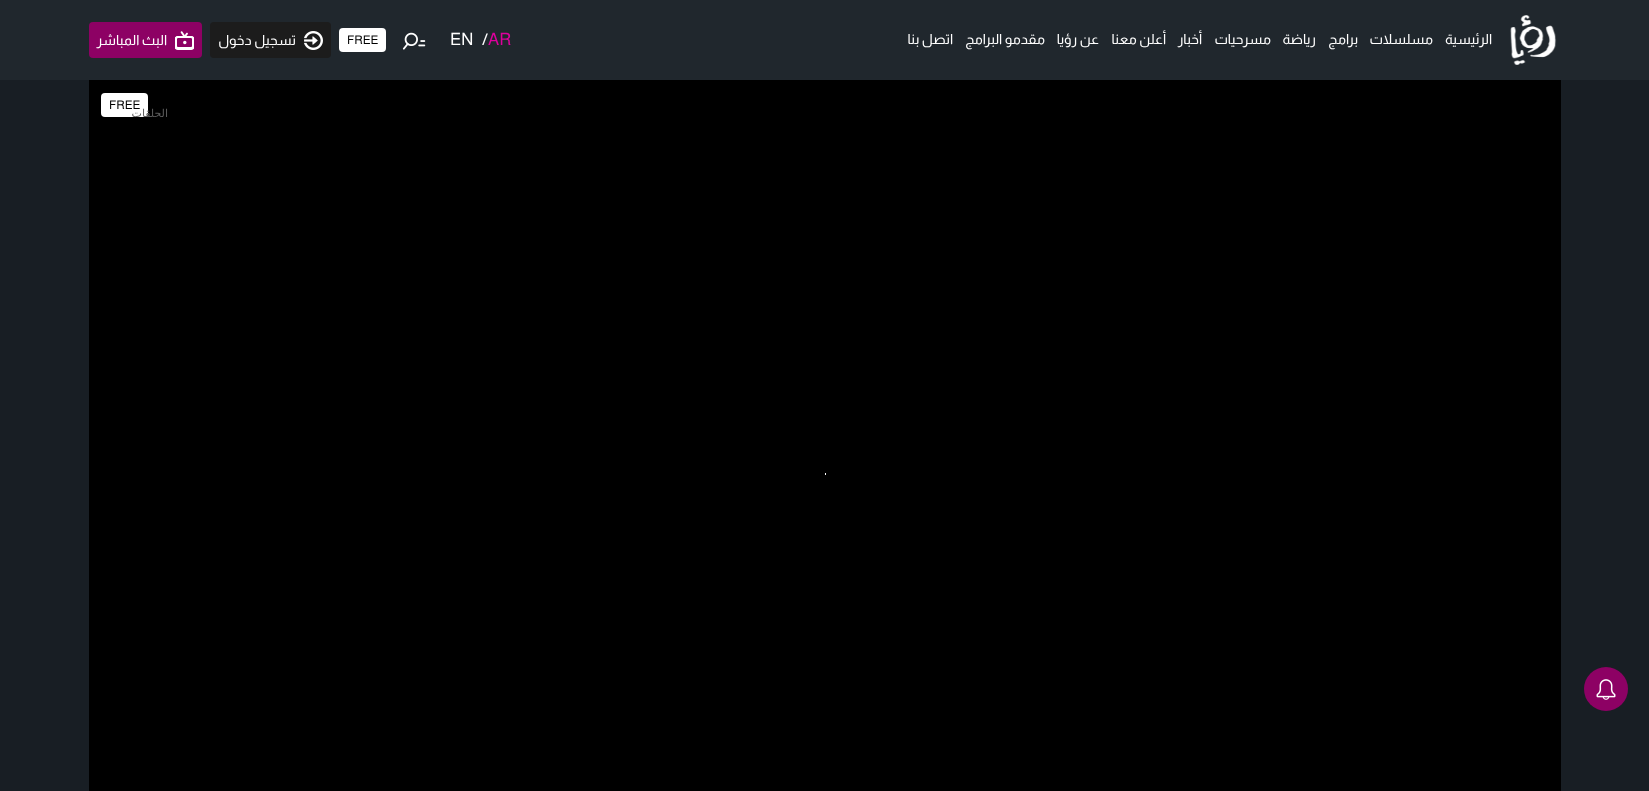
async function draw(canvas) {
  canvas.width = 1649
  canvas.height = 791
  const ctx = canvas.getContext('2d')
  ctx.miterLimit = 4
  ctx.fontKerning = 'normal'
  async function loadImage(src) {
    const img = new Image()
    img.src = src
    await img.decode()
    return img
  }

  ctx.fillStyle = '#181e24'
  ctx.fillRect(0, 0, 1649, 791)
  ctx.fillStyle = '#20272d'
  ctx.fillRect(0, 0, 1649, 80)
  ctx.drawImage(await loadImage('image0.png'), 1510, 15, 47, 50)
  ctx.direction = 'rtl'
  ctx.font = '14px Almarai'
  ctx.fillStyle = '#fff'
  ctx.fillText('الرئيسية', 1492, 44)
  ctx.fillText('مسلسلات', 1433, 44)
  ctx.fillText('برامج', 1358, 44)
  ctx.fillText('رياضة', 1316, 44)
  ctx.fillText('مسرحيات', 1271, 44)
  ctx.fillText('أخبار', 1202, 44)
  ctx.fillText('أعلن معنا', 1166, 44)
  ctx.fillText('عن رؤيا', 1099, 44)
  ctx.fillText('مقدمو البرامج', 1045, 44)
  ctx.fillText('اتصل بنا', 953, 44)
  ctx.direction = 'ltr'
  ctx.font = '17px Almarai'
  ctx.fillStyle = '#dd009c'
  ctx.fillText('AR', 488, 45)
  ctx.fillStyle = '#fff'
  ctx.fillText('/', 482, 45)
  ctx.fillText('EN', 450, 45)
  ctx.drawImage(await loadImage('image1.png'), 402, 32, 24, 18)
  ctx.beginPath()
  ctx.roundRect(339, 28, 47, 24, 4)
  ctx.fill()
  ctx.font = '12px Almarai'
  ctx.fillStyle = '#000'
  ctx.fillText('FREE', 347, 44)
  ctx.fillStyle = '#1c1c1c'
  ctx.beginPath()
  ctx.roundRect(210, 22, 121, 36, 4)
  ctx.fill()
  ctx.drawImage(await loadImage('image2.png'), 304, 31, 19, 19)
  ctx.direction = 'rtl'
  ctx.font = '14px Almarai'
  ctx.fillStyle = '#fff'
  ctx.fillText('تسجيل دخول', 296, 45)
  ctx.fillStyle = '#8d0164'
  ctx.beginPath()
  ctx.roundRect(89, 22, 113, 36, 4)
  ctx.fill()
  ctx.drawImage(await loadImage('image3.png'), 175, 31, 19, 19)
  ctx.fillStyle = '#fff'
  ctx.fillText('البث المباشر', 167, 45)
  ctx.fillStyle = '#000'
  ctx.fillRect(89, 80, 1472, 711)
  ctx.fillStyle = '#fff'
  ctx.beginPath()
  ctx.roundRect(101, 93, 47, 24, 4)
  ctx.fill()
  ctx.direction = 'ltr'
  ctx.font = '12px Almarai'
  ctx.fillStyle = '#000'
  ctx.fillText('FREE', 109, 109)
  ctx.direction = 'rtl'
  ctx.font = '11px DejaVu Sans'
  ctx.fillStyle = '#5d5d5d'
  ctx.fillText('الحلقات', 168, 117)
  ctx.beginPath()
  ctx.moveTo(825, 474)
  ctx.lineTo(826, 474)
  ctx.strokeStyle = '#fff'
  ctx.lineWidth = 2
  ctx.stroke()
  ctx.fillStyle = '#8d0164'
  ctx.beginPath()
  ctx.arc(1606, 689, 22, 0, 2 * Math.PI)
  ctx.fill()
  ctx.drawImage(await loadImage('image4.png'), 1596, 679, 20, 21)
}

draw(document.querySelector('canvas'))
